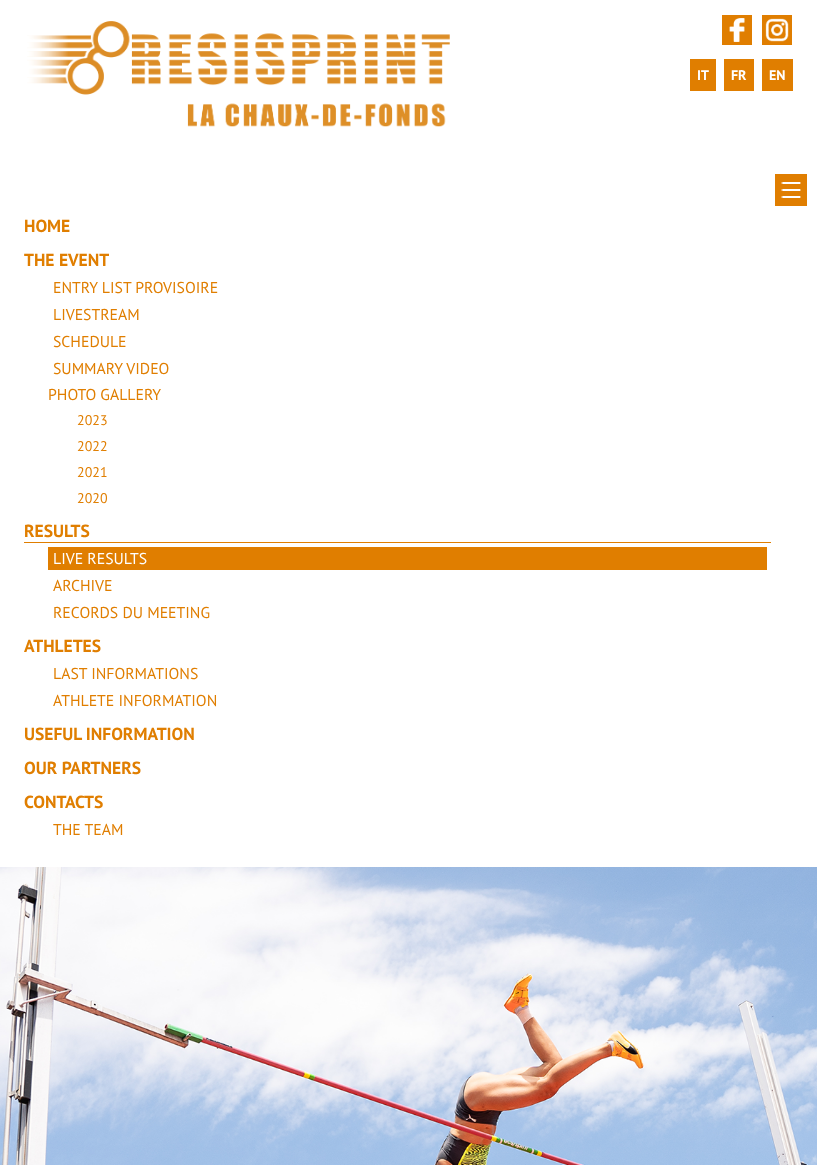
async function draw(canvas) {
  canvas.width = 817
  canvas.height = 1165
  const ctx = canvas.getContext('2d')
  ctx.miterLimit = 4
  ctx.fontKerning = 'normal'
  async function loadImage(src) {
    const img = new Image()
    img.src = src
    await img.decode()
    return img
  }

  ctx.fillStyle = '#fff'
  ctx.fillRect(0, 0, 817, 1165)
  ctx.drawImage(await loadImage('image0.png'), 27, 21, 423, 106)
  ctx.drawImage(await loadImage('image1.png'), 722, 15, 30, 30)
  ctx.drawImage(await loadImage('image2.png'), 762, 15, 30, 30)
  ctx.fillStyle = '#e07e00'
  ctx.fillRect(690, 59, 26, 32)
  ctx.font = 'bold 14px PT Sans'
  ctx.fillStyle = '#fff'
  ctx.fillText('IT', 697, 80)
  ctx.fillStyle = '#e07e00'
  ctx.fillRect(724, 59, 30, 32)
  ctx.fillStyle = '#fff'
  ctx.fillText('FR', 731, 80)
  ctx.fillStyle = '#e07e00'
  ctx.fillRect(762, 59, 31, 32)
  ctx.fillStyle = '#fff'
  ctx.fillText('EN', 769, 80)
  ctx.drawImage(await loadImage('image3.png'), 775, 174, 32, 32)
  ctx.font = 'bold 17.5px PT Sans'
  ctx.fillStyle = '#e07e00'
  ctx.fillText('HOME', 24, 232)
  ctx.fillText('THE EVENT', 24, 266)
  ctx.font = '15.75px PT Sans'
  ctx.fillText('ENTRY LIST PROVISOIRE', 53, 293)
  ctx.fillText('LIVESTREAM', 53, 320)
  ctx.fillText('SCHEDULE', 53, 347)
  ctx.fillText('SUMMARY VIDEO', 53, 374)
  ctx.fillText('PHOTO GALLERY', 48, 400)
  ctx.font = '14px PT Sans'
  ctx.fillText('2023', 77, 425)
  ctx.fillText('2022', 77, 451)
  ctx.fillText('2021', 77, 477)
  ctx.fillText('2020', 77, 503)
  ctx.fillRect(24, 542, 747, 1)
  ctx.font = 'bold 17.5px PT Sans'
  ctx.fillText('RESULTS', 24, 537)
  ctx.fillRect(48, 547, 719, 23)
  ctx.font = '15.75px PT Sans'
  ctx.fillStyle = '#fff'
  ctx.fillText('LIVE RESULTS', 53, 564)
  ctx.fillStyle = '#e07e00'
  ctx.fillText('ARCHIVE', 53, 591)
  ctx.fillText('RECORDS DU MEETING', 53, 618)
  ctx.font = 'bold 17.5px PT Sans'
  ctx.fillText('ATHLETES', 24, 652)
  ctx.font = '15.75px PT Sans'
  ctx.fillText('LAST INFORMATIONS', 53, 679)
  ctx.fillText('ATHLETE INFORMATION', 53, 706)
  ctx.font = 'bold 17.5px PT Sans'
  ctx.fillText('USEFUL INFORMATION', 24, 740)
  ctx.fillText('OUR PARTNERS', 24, 774)
  ctx.fillText('CONTACTS', 24, 808)
  ctx.font = '15.75px PT Sans'
  ctx.fillText('THE TEAM', 53, 835)
  ctx.drawImage(await loadImage('image4.png'), 0, 867, 817, 298)
}

draw(document.querySelector('canvas'))
